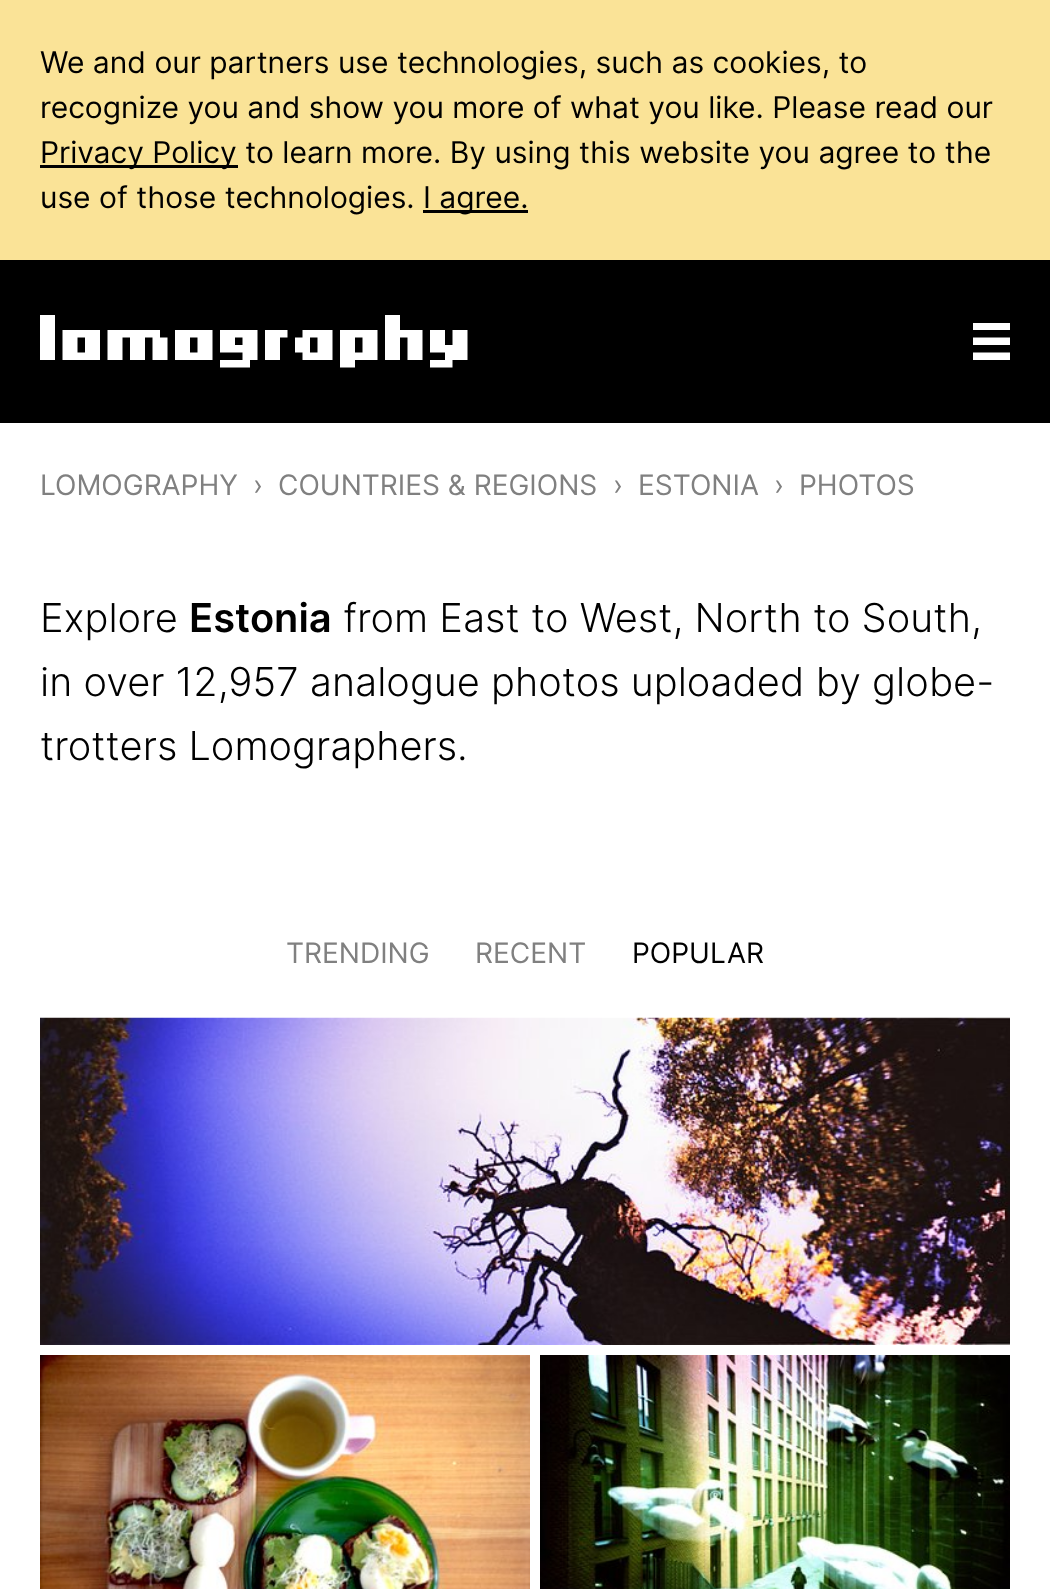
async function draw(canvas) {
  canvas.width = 1050
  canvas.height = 1589
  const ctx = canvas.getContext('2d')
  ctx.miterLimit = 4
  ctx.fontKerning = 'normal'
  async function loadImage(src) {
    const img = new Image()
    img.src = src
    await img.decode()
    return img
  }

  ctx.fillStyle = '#fff'
  ctx.fillRect(0, 0, 1050, 1589)
  ctx.fillStyle = '#fae397'
  ctx.fillRect(0, 0, 1050, 260)
  ctx.font = '30px Inter'
  ctx.fillStyle = '#000'
  ctx.fillText('We and our partners use technologies, such as cookies, to', 40, 73)
  ctx.fillText('recognize you and show you more of what you like. Please read our', 40, 118)
  ctx.fillRect(40, 165, 198, 3)
  ctx.fillText('Privacy Policy to learn more. By using this website you agree to the', 40, 163)
  ctx.fillText('use of those technologies.', 40, 208)
  ctx.fillRect(423, 210, 105, 3)
  ctx.fillText('I agree.', 423, 208)
  ctx.fillRect(0, 260, 1050, 163)
  ctx.drawImage(await loadImage('image0.png'), 40, 315, 428, 53)
  ctx.save()
  ctx.beginPath()
  ctx.rect(973, 323, 37, 37)
  ctx.clip()
  ctx.fillStyle = '#fff'
  ctx.beginPath()
  ctx.moveTo(972.5, 322.5)
  ctx.lineTo(972.5, 330)
  ctx.lineTo(1010, 330)
  ctx.lineTo(1010, 322.5)
  ctx.closePath()
  ctx.moveTo(972.5, 337.5)
  ctx.lineTo(972.5, 345)
  ctx.lineTo(1010, 345)
  ctx.lineTo(1010, 337.5)
  ctx.closePath()
  ctx.moveTo(972.5, 352.5)
  ctx.lineTo(972.5, 360)
  ctx.lineTo(1010, 360)
  ctx.lineTo(1010, 352.5)
  ctx.closePath()
  ctx.fill()
  ctx.restore()
  ctx.font = '28.1px Inter'
  ctx.fillStyle = '#808080'
  ctx.fillText('LOMOGRAPHY', 40, 495)
  ctx.fillText('›', 253, 495)
  ctx.fillText('COUNTRIES & REGIONS', 278, 495)
  ctx.fillText('›', 613, 495)
  ctx.fillText('ESTONIA', 638, 495)
  ctx.fillText('›', 774, 495)
  ctx.fillText('PHOTOS', 799, 495)
  ctx.font = '300 39.8px Inter'
  ctx.fillStyle = '#000'
  ctx.fillText('Explore', 40, 632)
  ctx.font = '600 39.8px Inter'
  ctx.fillText('Estonia', 189, 632)
  ctx.font = '300 39.8px Inter'
  ctx.fillText('from East to West, North to South,', 343, 632)
  ctx.fillText('in over 12,957 analogue photos uploaded by globe-', 40, 696)
  ctx.fillText('trotters Lomographers.', 40, 760)
  ctx.font = '28.1px Inter'
  ctx.fillStyle = '#808080'
  ctx.fillText('TRENDING', 286, 963)
  ctx.fillText('RECENT', 475, 963)
  ctx.fillStyle = '#000'
  ctx.fillText('POPULAR', 632, 963)
  ctx.drawImage(await loadImage('image1.png'), 40, 1017, 970, 328)
  ctx.drawImage(await loadImage('image2.png'), 40, 1355, 490, 234)
  ctx.drawImage(await loadImage('image3.png'), 540, 1355, 470, 234)
}

draw(document.querySelector('canvas'))
